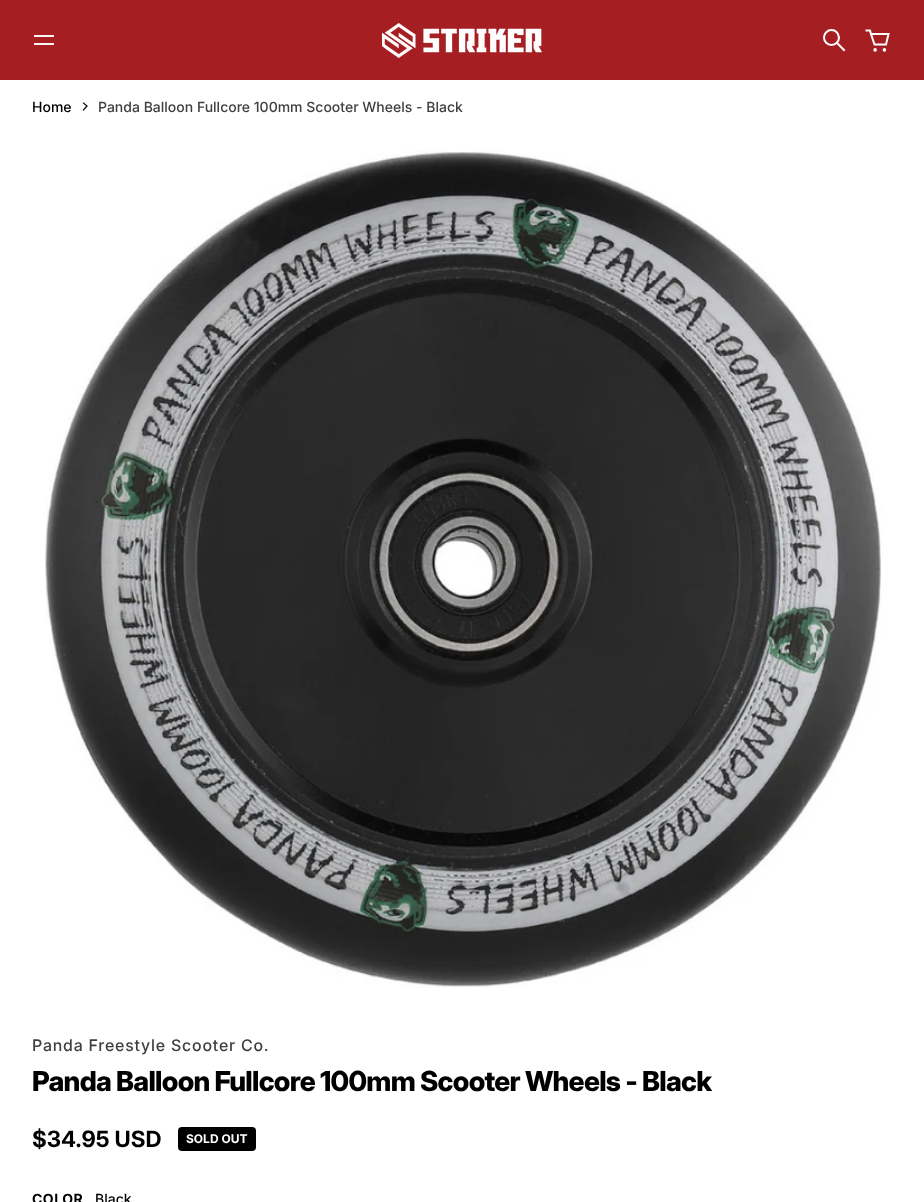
async function draw(canvas) {
  canvas.width = 924
  canvas.height = 1202
  const ctx = canvas.getContext('2d')
  ctx.miterLimit = 4
  ctx.fontKerning = 'normal'
  async function loadImage(src) {
    const img = new Image()
    img.src = src
    await img.decode()
    return img
  }

  ctx.fillStyle = '#fff'
  ctx.fillRect(0, 0, 924, 1202)
  ctx.fillStyle = '#a51e22'
  ctx.fillRect(0, 0, 924, 80)
  ctx.fillStyle = '#fbf4f4'
  ctx.fillRect(34, 43, 20, 2)
  ctx.fillRect(34, 35, 20, 2)
  ctx.drawImage(await loadImage('image0.png'), 382, 23, 160, 35)
  ctx.beginPath()
  ctx.moveTo(844, 50)
  ctx.lineTo(837, 43)
  ctx.strokeStyle = '#fff'
  ctx.lineWidth = 2
  ctx.lineCap = 'square'
  ctx.stroke()
  ctx.beginPath()
  ctx.arc(831.5, 37.5, 7.5, 0, 2 * Math.PI)
  ctx.stroke()
  ctx.beginPath()
  ctx.moveTo(871, 34)
  ctx.lineTo(888.5, 34)
  ctx.lineTo(886, 44.5)
  ctx.lineTo(874.5, 44.5)
  ctx.closePath()
  ctx.moveTo(871, 34)
  ctx.lineTo(870, 30.5)
  ctx.lineTo(866.5, 30.5)
  ctx.stroke()
  ctx.fillStyle = '#fff'
  ctx.beginPath()
  ctx.arc(875.1, 49.9, 1.8, 0, 2 * Math.PI)
  ctx.fill()
  ctx.beginPath()
  ctx.arc(884.4, 49.9, 1.8, 0, 2 * Math.PI)
  ctx.fill()
  ctx.font = '500 14px "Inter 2"'
  ctx.fillStyle = '#000'
  ctx.fillText('Home', 32, 112)
  ctx.beginPath()
  ctx.moveTo(83.5, 110)
  ctx.lineTo(87, 106)
  ctx.lineTo(83.5, 103)
  ctx.strokeStyle = '#000'
  ctx.lineWidth = 1.2
  ctx.stroke()
  ctx.fillStyle = '#404040'
  ctx.fillText('Panda Balloon Fullcore 100mm Scooter Wheels - Black', 98, 112)
  ctx.drawImage(await loadImage('image1.png'), 45, 150, 838, 838)
  ctx.letterSpacing = '0.8px'
  ctx.font = '500 16px Inter'
  ctx.fillText('Panda Freestyle Scooter Co.', 32, 1051)
  ctx.letterSpacing = '-0.7px'
  ctx.font = '800 27.6px Inter'
  ctx.fillStyle = '#000'
  ctx.fillText('Panda Balloon Fullcore 100mm Scooter Wheels - Black', 32, 1091)
  ctx.letterSpacing = '0px'
  ctx.font = 'bold 22.5px "Inter 2"'
  ctx.fillText('$34.95 USD', 32, 1147)
  ctx.beginPath()
  ctx.roundRect(178, 1127, 78, 24, 4)
  ctx.fill()
  ctx.font = 'bold 12px Inter'
  ctx.fillStyle = '#fff'
  ctx.fillText('SOLD OUT', 186, 1143)
  ctx.letterSpacing = '0.5px'
  ctx.font = 'bold 14px Inter'
  ctx.fillStyle = '#000'
  ctx.fillText('COLOR', 32, 1204)
  ctx.letterSpacing = '0px'
  ctx.font = '500 14px "Inter 2"'
  ctx.fillText('Black', 95, 1204)
}

draw(document.querySelector('canvas'))
